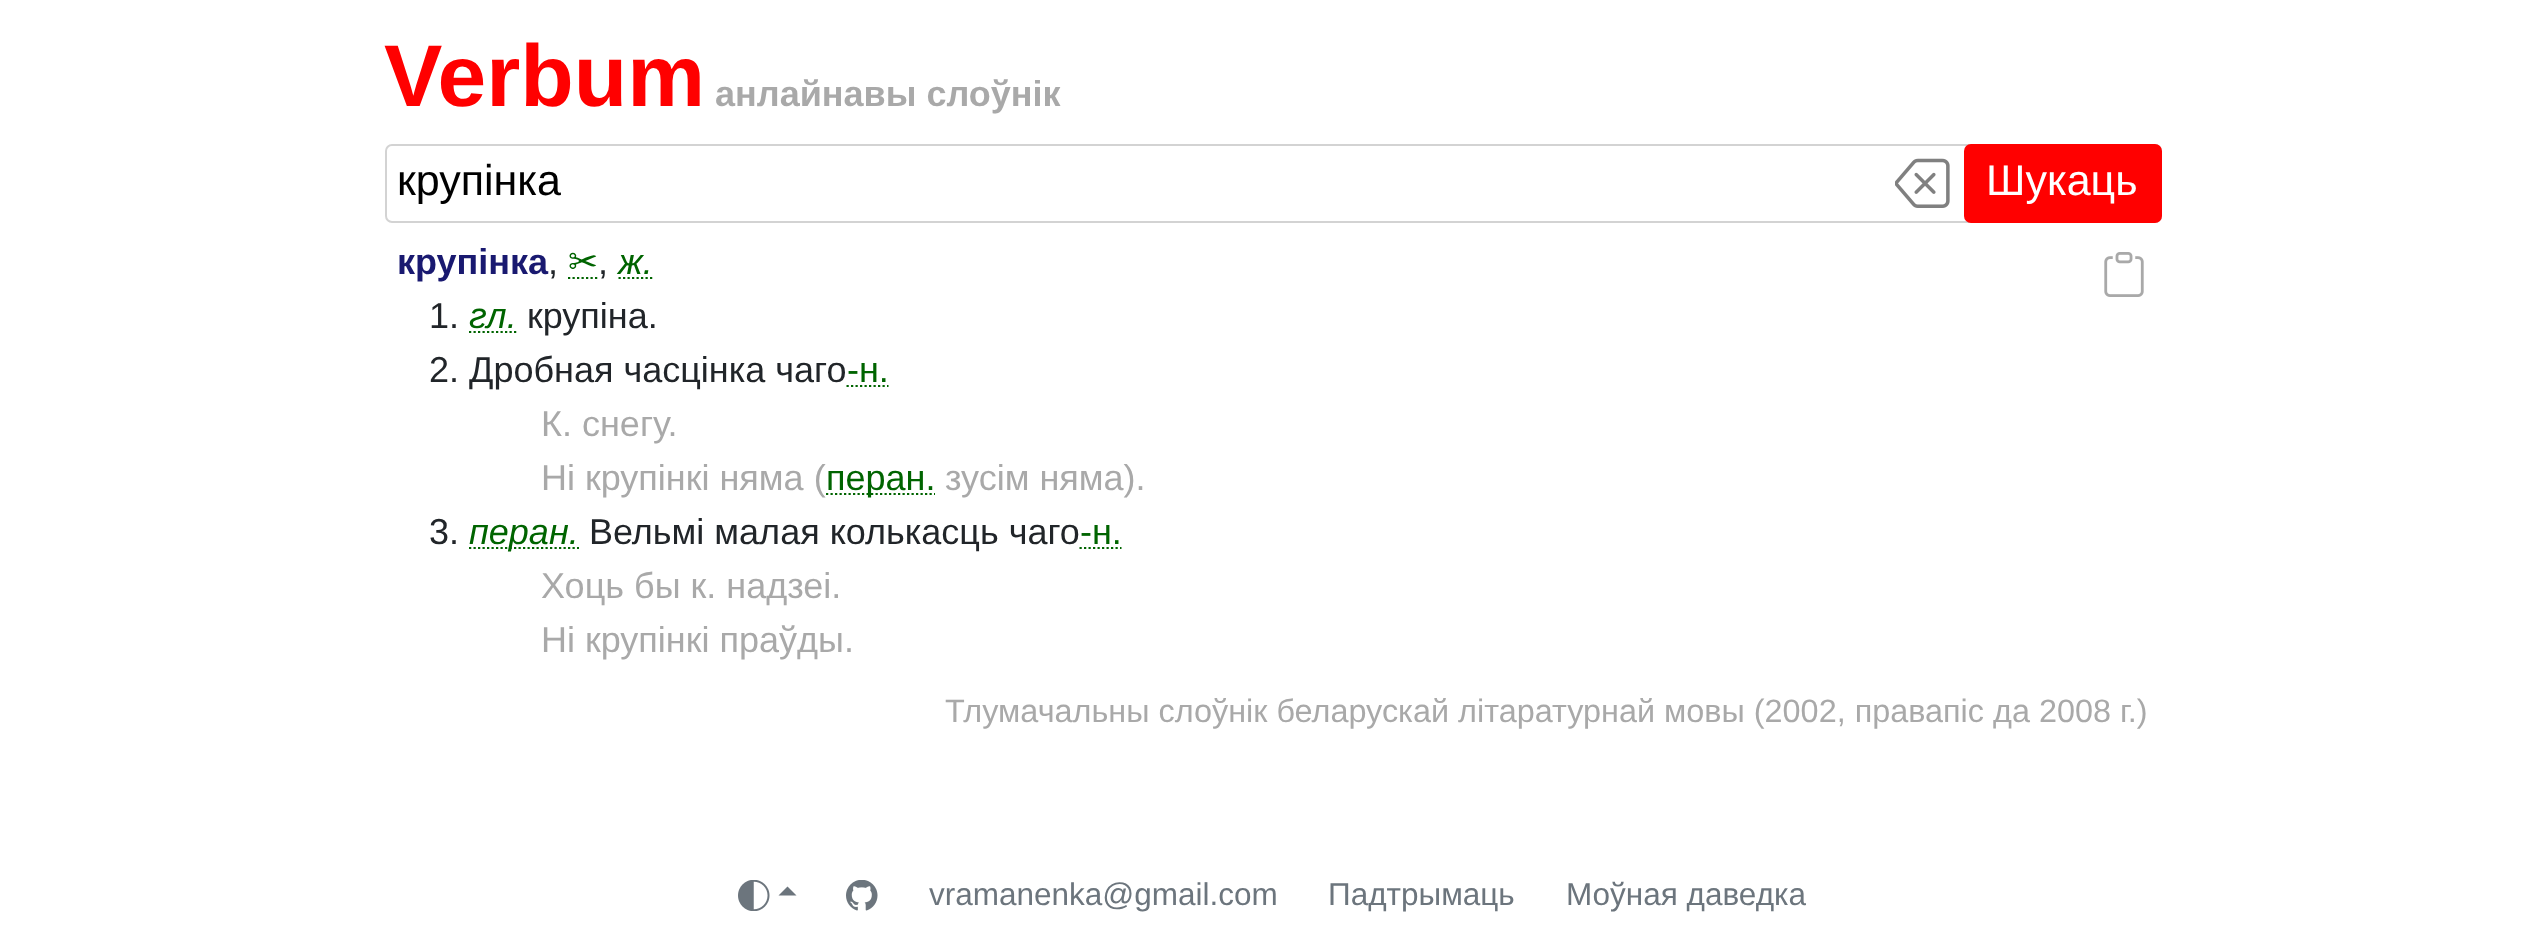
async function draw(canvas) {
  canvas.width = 2543
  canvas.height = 940
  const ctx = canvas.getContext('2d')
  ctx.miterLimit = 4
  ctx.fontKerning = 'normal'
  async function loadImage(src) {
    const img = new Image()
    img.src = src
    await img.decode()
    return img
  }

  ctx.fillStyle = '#fff'
  ctx.fillRect(0, 0, 2543, 940)
  ctx.font = 'bold 87.5px Liberation Sans'
  ctx.fillStyle = '#f00'
  ctx.fillText('Verbum', 384, 106)
  ctx.font = 'bold 36px Liberation Sans'
  ctx.fillStyle = '#a9a9a9'
  ctx.fillText('анлайнавы слоўнік', 715, 106)
  ctx.beginPath()
  ctx.roundRect(386, 145, 1775, 77, 6)
  ctx.strokeStyle = '#d3d3d3'
  ctx.lineWidth = 2
  ctx.stroke()
  ctx.font = '43px Liberation Sans'
  ctx.fillStyle = '#000'
  ctx.fillText('крупінка', 397, 195)
  ctx.drawImage(await loadImage('image0.png'), 1895, 158, 55, 50)
  ctx.fillStyle = '#f00'
  ctx.beginPath()
  ctx.roundRect(1964, 144, 198, 79, 7)
  ctx.fill()
  ctx.fillStyle = '#fff'
  ctx.fillText('Шукаць', 1986, 195)
  ctx.font = 'bold 36px Liberation Sans'
  ctx.fillStyle = '#191970'
  ctx.fillText('крупінка', 397, 274)
  ctx.font = '36px Liberation Sans'
  ctx.fillStyle = '#212529'
  ctx.fillText(',', 548, 274)
  ctx.font = '36px DejaVu Sans'
  ctx.fillStyle = '#006400'
  ctx.fillText('✂', 568, 274)
  ctx.beginPath()
  ctx.moveTo(568, 278)
  ctx.lineTo(598.5, 278)
  ctx.strokeStyle = '#006400'
  ctx.lineWidth = 2.2
  ctx.setLineDash([2.25, 2.25])
  ctx.stroke()
  ctx.font = '36px Liberation Sans'
  ctx.fillStyle = '#212529'
  ctx.fillText(',', 598, 274)
  ctx.font = 'italic 36px Liberation Sans'
  ctx.fillStyle = '#006400'
  ctx.fillText('ж.', 618, 274)
  ctx.beginPath()
  ctx.moveTo(618.5, 278)
  ctx.lineTo(653, 278)
  ctx.stroke()
  ctx.font = '36px Liberation Sans'
  ctx.fillStyle = '#212529'
  ctx.fillText('1.', 429, 328)
  ctx.font = 'italic 36px Liberation Sans'
  ctx.fillStyle = '#006400'
  ctx.fillText('гл.', 469, 328)
  ctx.beginPath()
  ctx.moveTo(469, 332)
  ctx.lineTo(517, 332)
  ctx.stroke()
  ctx.font = '36px Liberation Sans'
  ctx.fillStyle = '#212529'
  ctx.fillText('крупіна.', 527, 328)
  ctx.fillText('2. Дробная часцінка чаго', 429, 382)
  ctx.fillStyle = '#006400'
  ctx.fillText('-н.', 847, 382)
  ctx.beginPath()
  ctx.moveTo(846.5, 386)
  ctx.lineTo(888.5, 386)
  ctx.stroke()
  ctx.fillStyle = '#a9a9a9'
  ctx.fillText('К. снегу.', 541, 436)
  ctx.fillText('Ні крупінкі няма (', 541, 490)
  ctx.beginPath()
  ctx.moveTo(826, 494)
  ctx.lineTo(935, 494)
  ctx.stroke()
  ctx.fillStyle = '#006400'
  ctx.fillText('перан.', 826, 490)
  ctx.fillStyle = '#a9a9a9'
  ctx.fillText('зусім няма).', 945, 490)
  ctx.fillStyle = '#212529'
  ctx.fillText('3.', 429, 544)
  ctx.beginPath()
  ctx.moveTo(469, 548)
  ctx.lineTo(579, 548)
  ctx.stroke()
  ctx.font = 'italic 36px Liberation Sans'
  ctx.fillStyle = '#006400'
  ctx.fillText('перан.', 469, 544)
  ctx.font = '36px Liberation Sans'
  ctx.fillStyle = '#212529'
  ctx.fillText('Вельмі малая колькасць чаго', 589, 544)
  ctx.fillStyle = '#006400'
  ctx.fillText('-н.', 1080, 544)
  ctx.beginPath()
  ctx.moveTo(1079.5, 548)
  ctx.lineTo(1121.5, 548)
  ctx.stroke()
  ctx.fillStyle = '#a9a9a9'
  ctx.fillText('Хоць бы к. надзеі.', 541, 598)
  ctx.fillText('Ні крупінкі праўды.', 541, 652)
  ctx.drawImage(await loadImage('image1.png'), 2104, 252, 40, 45)
  ctx.font = '32.4px Liberation Sans'
  ctx.fillText('Тлумачальны слоўнік беларускай літаратурнай мовы (2002, правапіс да 2008 г.)', 945, 722)
  ctx.drawImage(await loadImage('image2.png'), 738, 880, 32, 31)
  ctx.fillStyle = '#6c757d'
  ctx.beginPath()
  ctx.moveTo(796.5, 895.5)
  ctx.lineTo(778.5, 895.5)
  ctx.lineTo(787.5, 886.5)
  ctx.closePath()
  ctx.fill()
  ctx.drawImage(await loadImage('image3.png'), 846, 880, 32, 31)
  ctx.font = '31.5px Liberation Sans'
  ctx.fillText('vramanenka@gmail.com', 929, 905)
  ctx.fillText('Падтрымаць', 1328, 905)
  ctx.fillText('Моўная даведка', 1566, 905)
}

draw(document.querySelector('canvas'))
